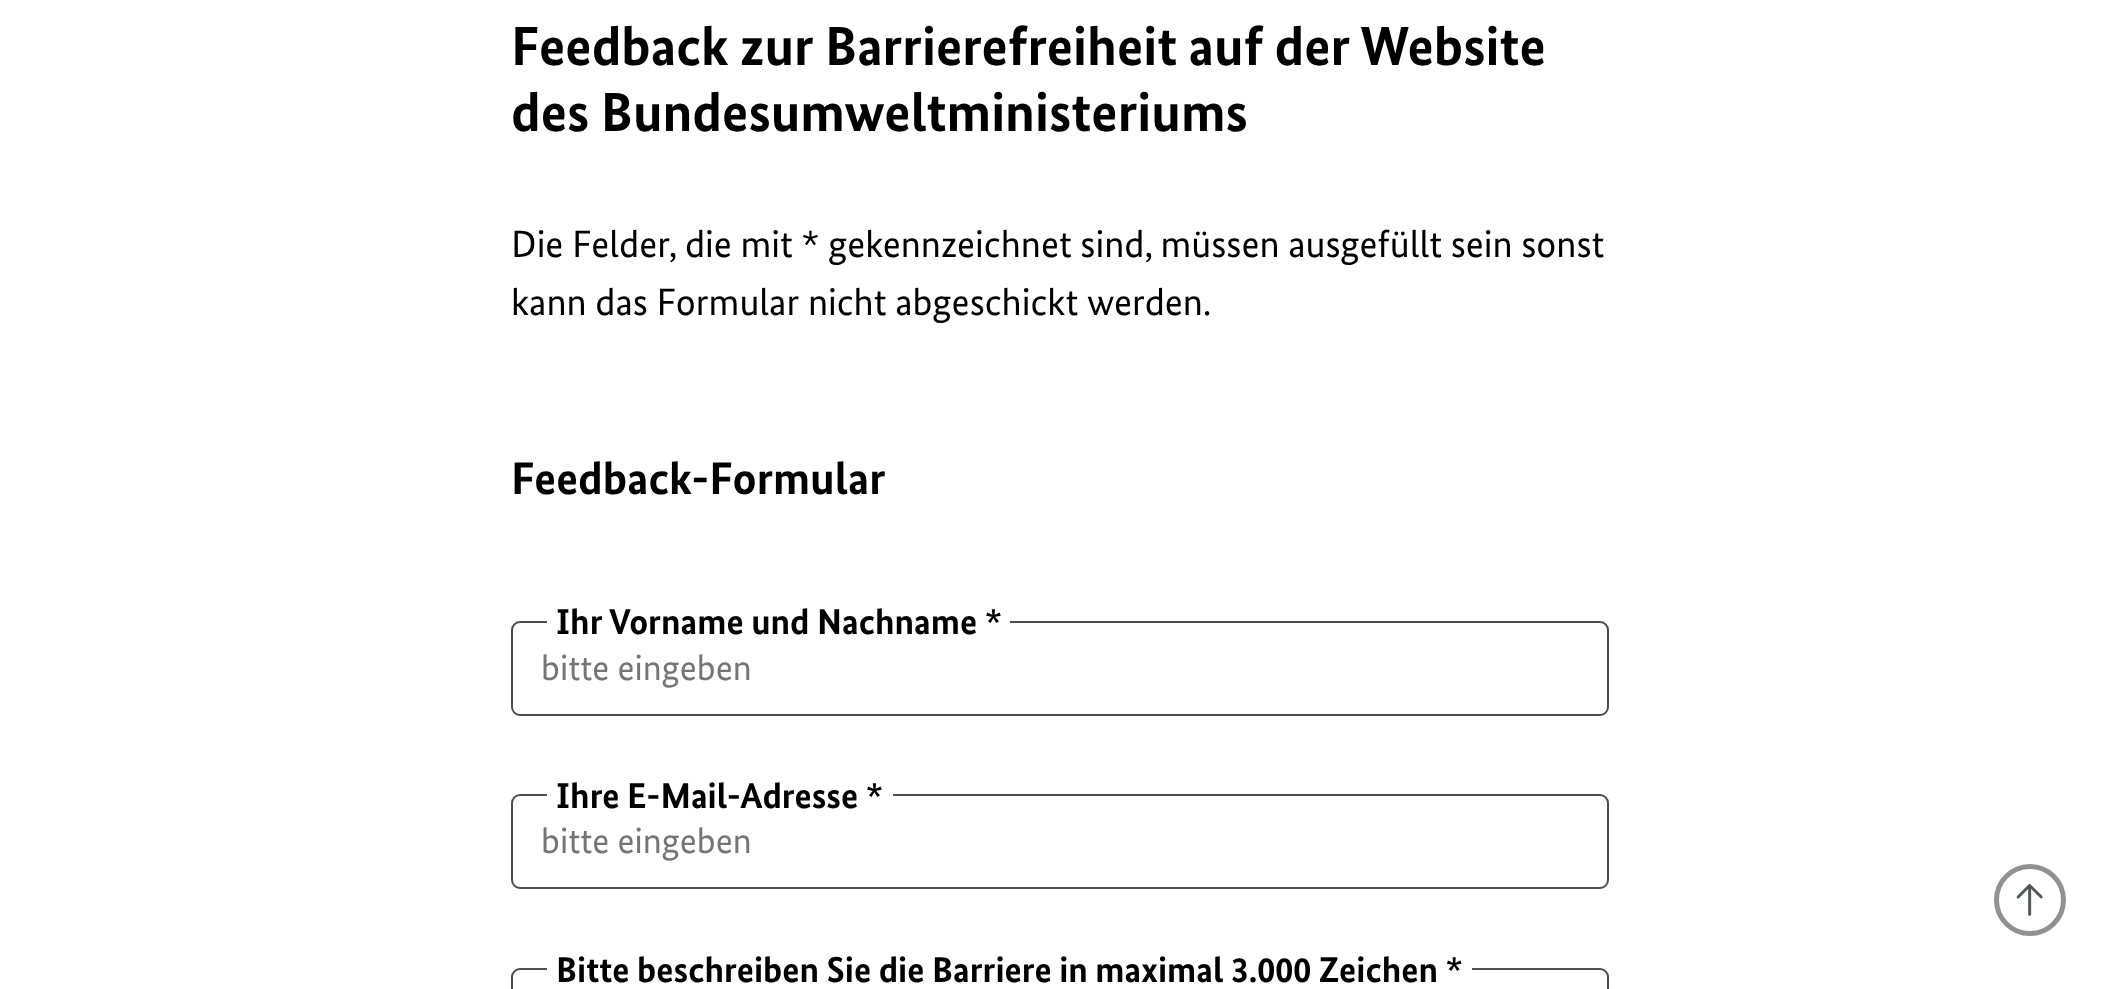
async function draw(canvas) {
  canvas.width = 2118
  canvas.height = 989
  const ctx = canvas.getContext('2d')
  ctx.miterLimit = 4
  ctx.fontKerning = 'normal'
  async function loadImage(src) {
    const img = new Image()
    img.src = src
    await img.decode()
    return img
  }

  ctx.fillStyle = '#fff'
  ctx.fillRect(0, 0, 2118, 989)
  ctx.wordSpacing = '-0.1px'
  ctx.font = 'bold 55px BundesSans'
  ctx.fillStyle = '#000'
  ctx.fillText('Feedback zur Barrierefreiheit auf der Website', 511, 65)
  ctx.wordSpacing = '0px'
  ctx.fillText('des Bundesumweltministeriums', 511, 131)
  ctx.wordSpacing = '-0.1px'
  ctx.font = '38.15px BundesSans'
  ctx.fillText('Die Felder, die mit * gekennzeichnet sind, müssen ausgefüllt sein sonst', 511, 257)
  ctx.wordSpacing = '0px'
  ctx.fillText('kann das Formular nicht abgeschickt werden.', 511, 315)
  ctx.font = 'bold 45.75px BundesSans'
  ctx.fillText('Feedback-Formular', 511, 494)
  ctx.beginPath()
  ctx.roundRect(512, 622, 1096, 93, 8)
  ctx.strokeStyle = '#4d4d4d'
  ctx.lineWidth = 2
  ctx.stroke()
  ctx.fillStyle = '#fff'
  ctx.beginPath()
  ctx.roundRect(547, 596, 463, 54, 9)
  ctx.fill()
  ctx.font = 'bold 36px BundesSans'
  ctx.fillStyle = '#000'
  ctx.fillText('Ihr Vorname und Nachname *', 556, 634)
  ctx.font = '36px BundesSans'
  ctx.fillStyle = '#757575'
  ctx.fillText('bitte eingeben', 541, 680)
  ctx.beginPath()
  ctx.roundRect(512, 795, 1096, 93, 8)
  ctx.stroke()
  ctx.fillStyle = '#fff'
  ctx.beginPath()
  ctx.roundRect(547, 770, 346, 54, 9)
  ctx.fill()
  ctx.font = 'bold 36px BundesSans'
  ctx.fillStyle = '#000'
  ctx.fillText('Ihre E-Mail-Adresse *', 556, 808)
  ctx.font = '36px BundesSans'
  ctx.fillStyle = '#757575'
  ctx.fillText('bitte eingeben', 541, 853)
  ctx.beginPath()
  ctx.roundRect(512, 969, 1096, 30, 8)
  ctx.stroke()
  ctx.fillStyle = '#fff'
  ctx.beginPath()
  ctx.roundRect(547, 943, 925, 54, 9)
  ctx.fill()
  ctx.font = 'bold 36px BundesSans'
  ctx.fillStyle = '#000'
  ctx.fillText('Bitte beschreiben Sie die Barriere in maximal 3.000 Zeichen *', 556, 982)
  ctx.beginPath()
  ctx.arc(2030, 900, 33.5, 0, 2 * Math.PI)
  ctx.strokeStyle = '#919191'
  ctx.lineWidth = 5
  ctx.stroke()
  ctx.drawImage(await loadImage('image0.png'), 2016, 884, 27, 32)
}

draw(document.querySelector('canvas'))
